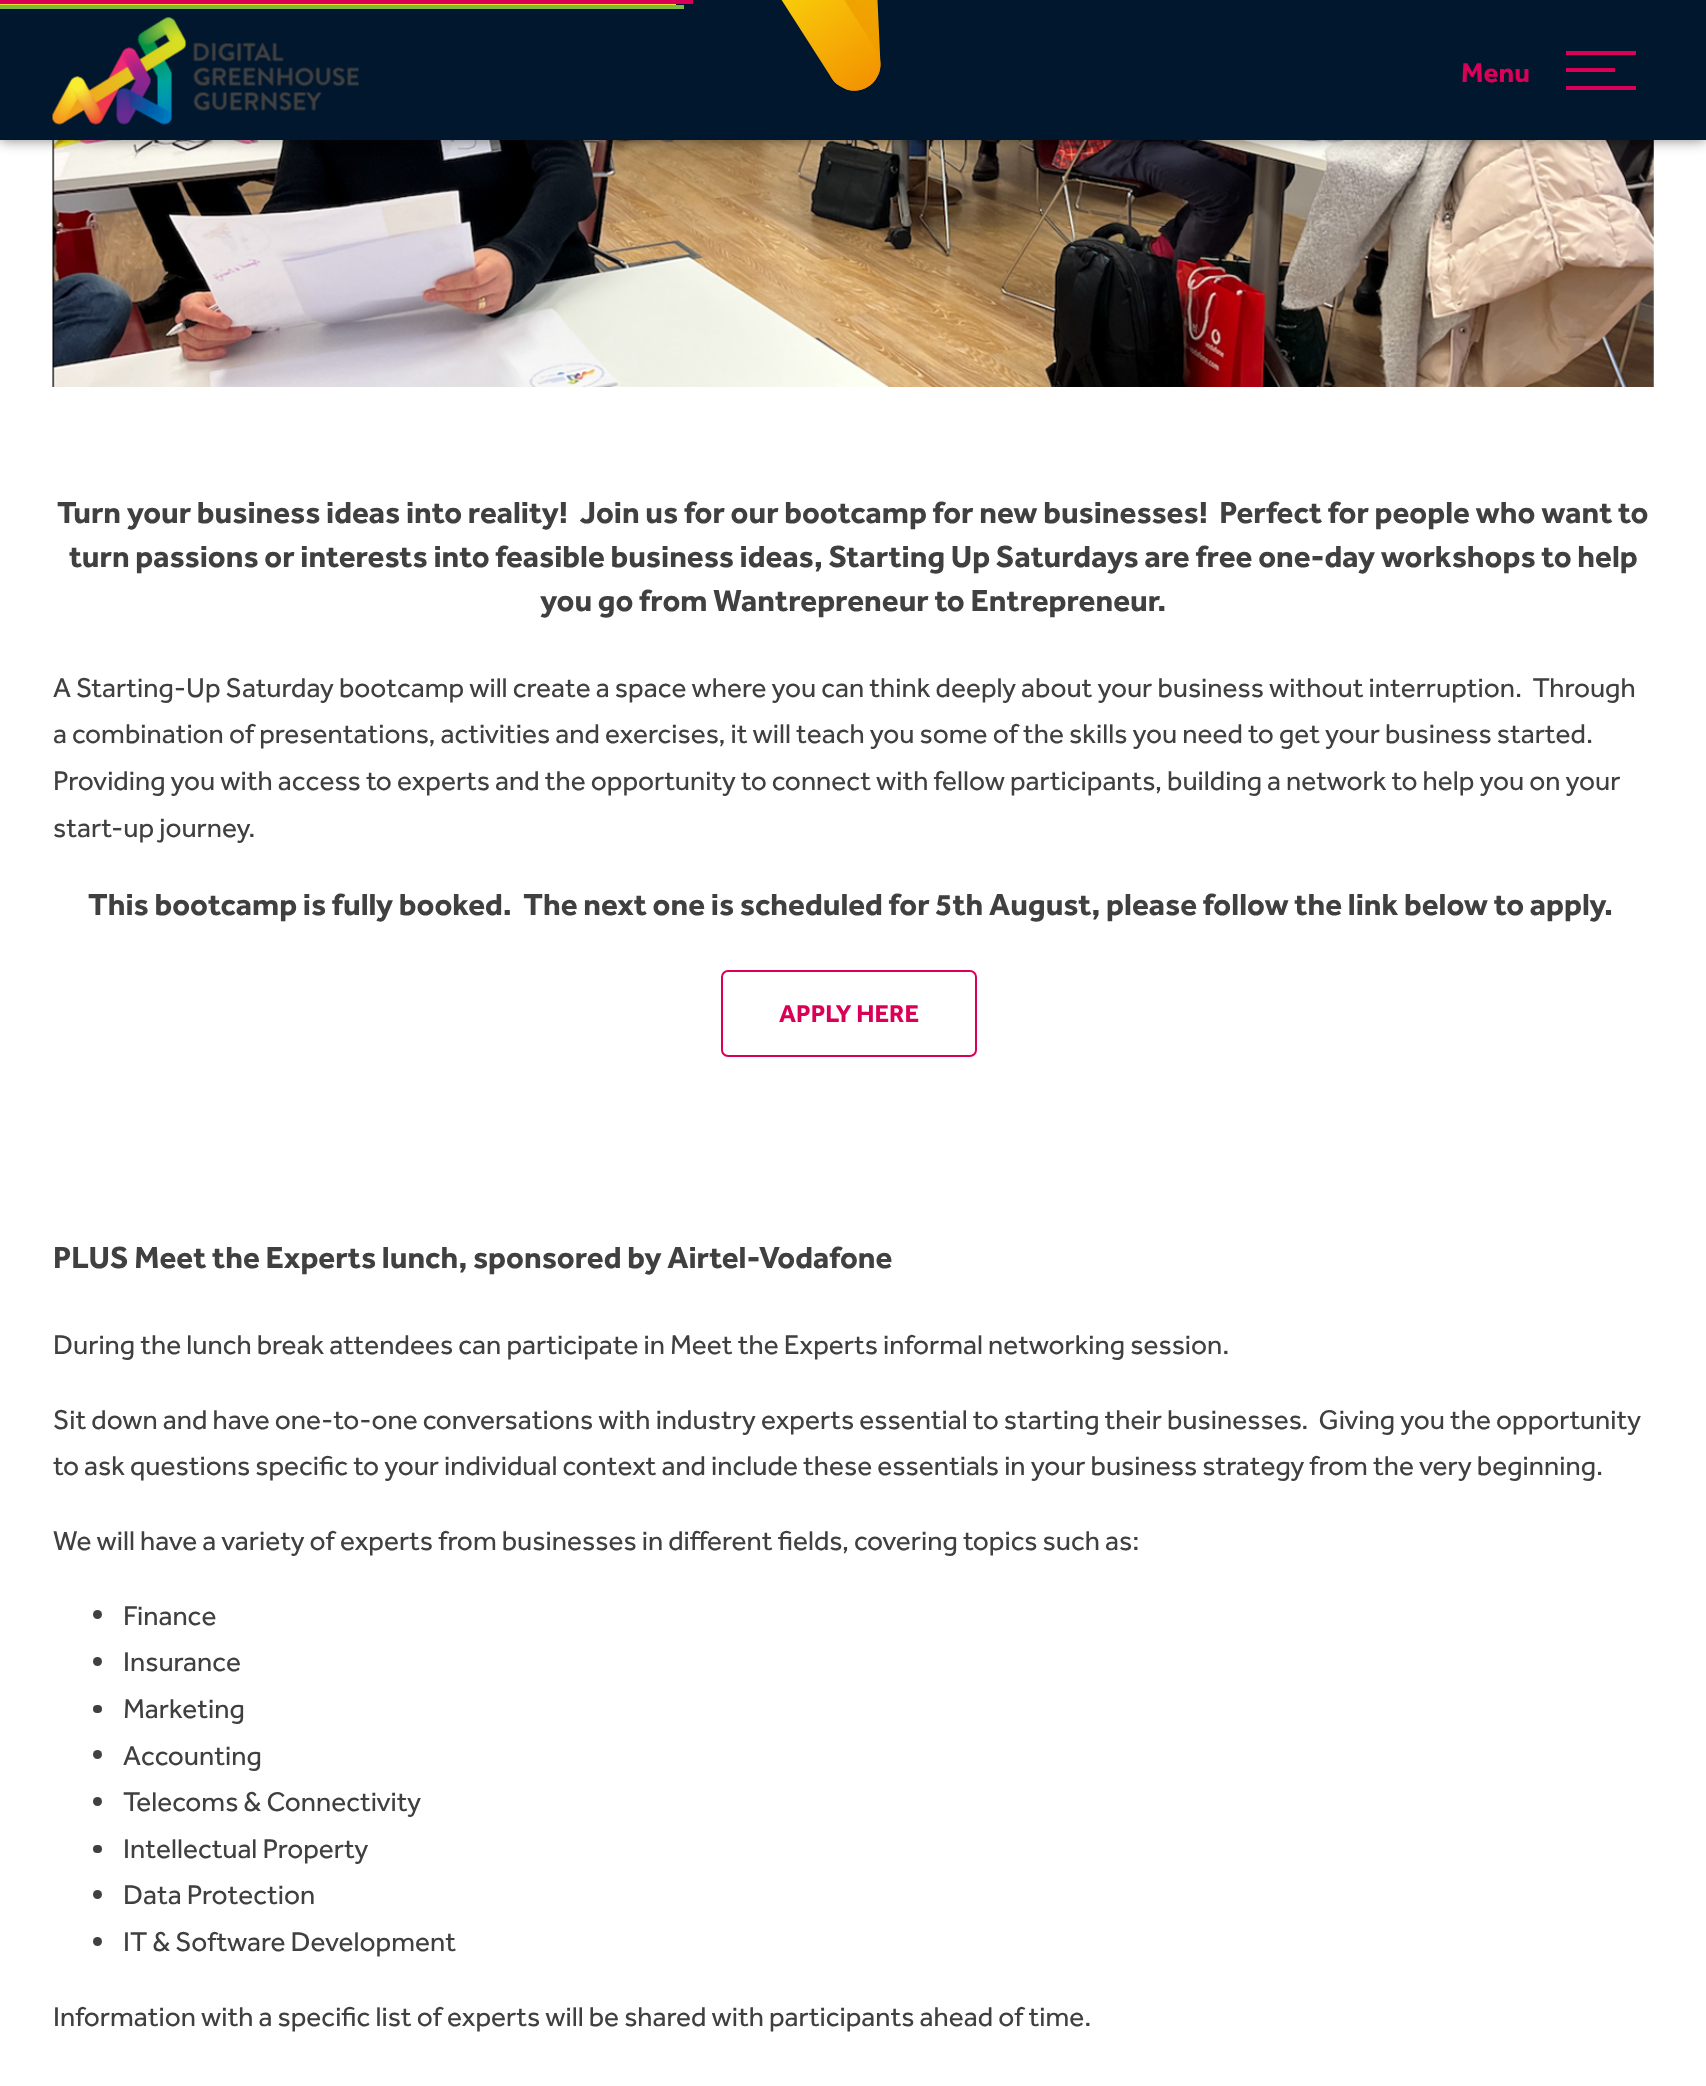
async function draw(canvas) {
  canvas.width = 1706
  canvas.height = 2086
  const ctx = canvas.getContext('2d')
  ctx.miterLimit = 4
  ctx.fontKerning = 'normal'
  async function loadImage(src) {
    const img = new Image()
    img.src = src
    await img.decode()
    return img
  }

  ctx.fillStyle = '#fff'
  ctx.fillRect(0, 0, 1706, 2086)
  ctx.drawImage(await loadImage('image2.png'), 52, 140, 1602, 247)
  ctx.fillStyle = '#00000080'
  ctx.filter = 'blur(7px)'
  ctx.beginPath()
  ctx.rect(0, 0, 1706, 140)
  ctx.fill()
  ctx.filter = 'none'
  ctx.fillStyle = '#00172e'
  ctx.fillRect(0, 0, 1706, 140)
  ctx.fillStyle = '#db0057'
  ctx.fillRect(0, 0, 693, 4)
  ctx.fillStyle = '#f8e330'
  ctx.fillRect(0, 4, 676, 1)
  ctx.fillStyle = '#7bba40'
  ctx.fillRect(0, 5, 684, 4)
  ctx.drawImage(await loadImage('image0.png'), 781, 0, 100, 91)
  ctx.drawImage(await loadImage('image1.png'), 52, 17, 307, 108)
  ctx.font = 'bold 28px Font'
  ctx.fillStyle = '#db0057'
  ctx.fillText('Menu', 1461, 82)
  ctx.fillRect(1566, 51, 70, 4)
  ctx.fillRect(1566, 68, 49, 4)
  ctx.fillRect(1566, 86, 70, 4)
  ctx.font = 'bold 31.5px Font'
  ctx.fillStyle = '#404040'
  ctx.fillText('Turn your business ideas into reality!  Join us for our bootcamp for new businesses!  Perfect for people who want to', 57, 523)
  ctx.fillText('turn passions or interests into feasible business ideas, Starting Up Saturdays are free one-day workshops to help', 69, 567)
  ctx.fillText('you go from Wantrepreneur to Entrepreneur.', 540, 611)
  ctx.font = '28px Font'
  ctx.fillText('A Starting-Up Saturday bootcamp will create a space where you can think deeply about your business without interruption.  Through', 53, 697)
  ctx.fillText('a combination of presentations, activities and exercises, it will teach you some of the skills you need to get your business started.', 53, 743)
  ctx.fillText('Providing you with access to experts and the opportunity to connect with fellow participants, building a network to help you on your', 53, 790)
  ctx.fillText('start-up journey.', 53, 837)
  ctx.font = 'bold 31.5px Font'
  ctx.fillText('This bootcamp is fully booked.  The next one is scheduled for 5th August, please follow the link below to apply.', 88, 915)
  ctx.beginPath()
  ctx.roundRect(722, 971, 254, 85, 6)
  ctx.strokeStyle = '#db0057'
  ctx.lineWidth = 2
  ctx.stroke()
  ctx.font = 'bold 25.25px Font'
  ctx.fillStyle = '#db0057'
  ctx.fillText('APPLY HERE', 779, 1022)
  ctx.font = 'bold 31.5px Font'
  ctx.fillStyle = '#404040'
  ctx.fillText('PLUS Meet the Experts lunch, sponsored by Airtel-Vodafone', 53, 1268)
  ctx.font = '28px Font'
  ctx.fillText('During the lunch break attendees can participate in Meet the Experts informal networking session.', 53, 1354)
  ctx.fillText('Sit down and have one-to-one conversations with industry experts essential to starting their businesses.  Giving you the opportunity', 53, 1429)
  ctx.fillText('to ask questions specific to your individual context and include these essentials in your business strategy from the very beginning.', 53, 1475)
  ctx.fillText('We will have a variety of experts from businesses in different fields, covering topics such as:', 53, 1550)
  ctx.beginPath()
  ctx.arc(97.5, 1614.5, 4.5, 0, 2 * Math.PI)
  ctx.fill()
  ctx.fillText('Finance', 123, 1625)
  ctx.beginPath()
  ctx.arc(97.5, 1661.5, 4.5, 0, 2 * Math.PI)
  ctx.fill()
  ctx.fillText('Insurance', 123, 1671)
  ctx.beginPath()
  ctx.roundRect(93, 1705, 9, 8, 4)
  ctx.fill()
  ctx.fillText('Marketing', 123, 1718)
  ctx.beginPath()
  ctx.arc(97.5, 1754.5, 4.5, 0, 2 * Math.PI)
  ctx.fill()
  ctx.fillText('Accounting', 123, 1765)
  ctx.beginPath()
  ctx.arc(97.5, 1801.5, 4.5, 0, 2 * Math.PI)
  ctx.fill()
  ctx.fillText('Telecoms & Connectivity', 123, 1811)
  ctx.beginPath()
  ctx.roundRect(93, 1845, 9, 8, 4)
  ctx.fill()
  ctx.fillText('Intellectual Property', 123, 1858)
  ctx.beginPath()
  ctx.arc(97.5, 1894.5, 4.5, 0, 2 * Math.PI)
  ctx.fill()
  ctx.fillText('Data Protection', 123, 1904)
  ctx.beginPath()
  ctx.arc(97.5, 1941.5, 4.5, 0, 2 * Math.PI)
  ctx.fill()
  ctx.fillText('IT & Software Development', 123, 1951)
  ctx.fillText('Information with a specific list of experts will be shared with participants ahead of time.', 53, 2026)
}

draw(document.querySelector('canvas'))
